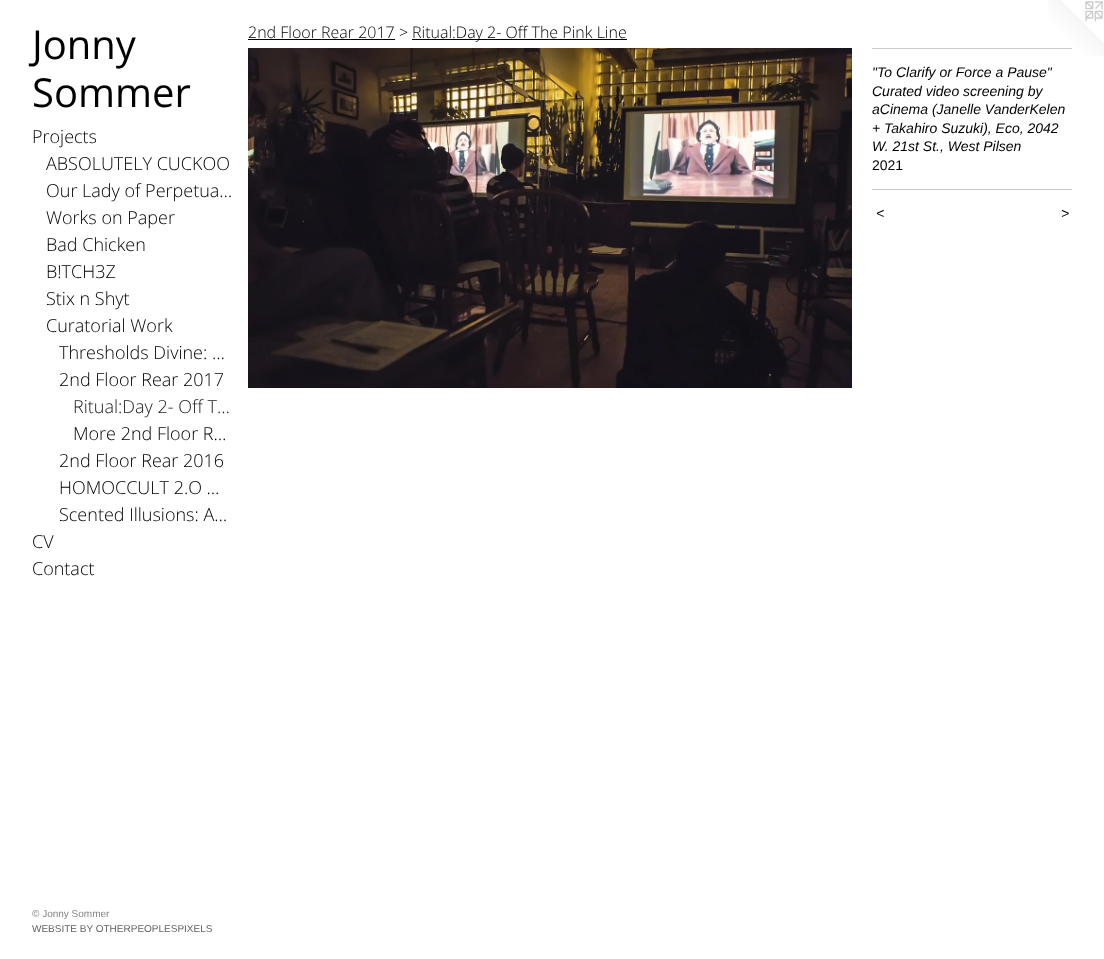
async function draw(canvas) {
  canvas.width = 1104
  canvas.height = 959
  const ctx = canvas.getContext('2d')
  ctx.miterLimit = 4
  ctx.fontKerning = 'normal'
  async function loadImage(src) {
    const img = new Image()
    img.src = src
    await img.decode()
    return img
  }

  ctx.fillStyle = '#fff'
  ctx.fillRect(0, 0, 1104, 959)
  ctx.font = '40px Open Sans'
  ctx.fillStyle = '#000'
  ctx.fillText('Jonny', 32, 59)
  ctx.fillText('Sommer', 32, 107)
  ctx.font = '300 18px Open Sans'
  ctx.fillText('Projects', 32, 143)
  ctx.fillText('ABSOLUTELY CUCKOO', 46, 170)
  ctx.fillText('Our Lady of Perpetua…', 46, 197)
  ctx.fillText('Works on Paper', 46, 224)
  ctx.fillText('Bad Chicken', 46, 251)
  ctx.fillText('B!TCH3Z', 46, 278)
  ctx.fillText('Stix n Shyt', 46, 305)
  ctx.fillText('Curatorial Work', 46, 332)
  ctx.fillText('Thresholds Divine: …', 59, 359)
  ctx.fillText('2nd Floor Rear 2017', 59, 386)
  ctx.fillStyle = '#1a1a1a'
  ctx.fillText('Ritual:Day 2- Off T…', 73, 413)
  ctx.fillStyle = '#000'
  ctx.fillText('More 2nd Floor R…', 73, 440)
  ctx.fillText('2nd Floor Rear 2016', 59, 467)
  ctx.fillText('HOMOCCULT 2.O …', 59, 494)
  ctx.fillText('Scented Illusions: A…', 59, 521)
  ctx.fillText('CV', 32, 548)
  ctx.fillText('Contact', 32, 575)
  ctx.font = '10px Liberation Sans'
  ctx.fillStyle = '#858585'
  ctx.fillText('© Jonny Sommer', 32, 917)
  ctx.fillStyle = '#636363'
  ctx.fillText('WEBSITE BY OTHERPEOPLESPIXELS', 32, 932)
  ctx.font = '300 16px Open Sans'
  ctx.fillStyle = '#000'
  ctx.fillText('2nd Floor Rear 2017 >', 248, 38)
  ctx.fillRect(248, 39, 147, 1)
  ctx.fillRect(412, 39, 215, 1)
  ctx.fillText('Ritual:Day 2- Off The Pink Line', 412, 38)
  ctx.drawImage(await loadImage('image0.png'), 248, 48, 604, 340)
  ctx.drawImage(await loadImage('image1.png'), 1048, 0, 56, 56)
  ctx.fillStyle = '#ccc'
  ctx.fillRect(872, 48, 200, 1)
  ctx.font = 'italic 14px Liberation Sans'
  ctx.fillStyle = '#000'
  ctx.fillText('"To Clarify or Force a Pause"', 872, 77)
  ctx.fillText('Curated video screening by', 872, 96)
  ctx.fillText('aCinema (Janelle VanderKelen', 872, 114)
  ctx.fillText('+ Takahiro Suzuki), Eco, 2042', 872, 133)
  ctx.fillText('W. 21st St., West Pilsen', 872, 151)
  ctx.font = '14px Liberation Sans'
  ctx.fillText('2021', 872, 170)
  ctx.fillStyle = '#ccc'
  ctx.fillRect(872, 189, 200, 1)
  ctx.letterSpacing = '1px'
  ctx.font = 'italic 14px Liberation Sans'
  ctx.fillStyle = '#000'
  ctx.fillText('<', 876, 218)
  ctx.fillText('>', 1061, 218)
}

draw(document.querySelector('canvas'))
